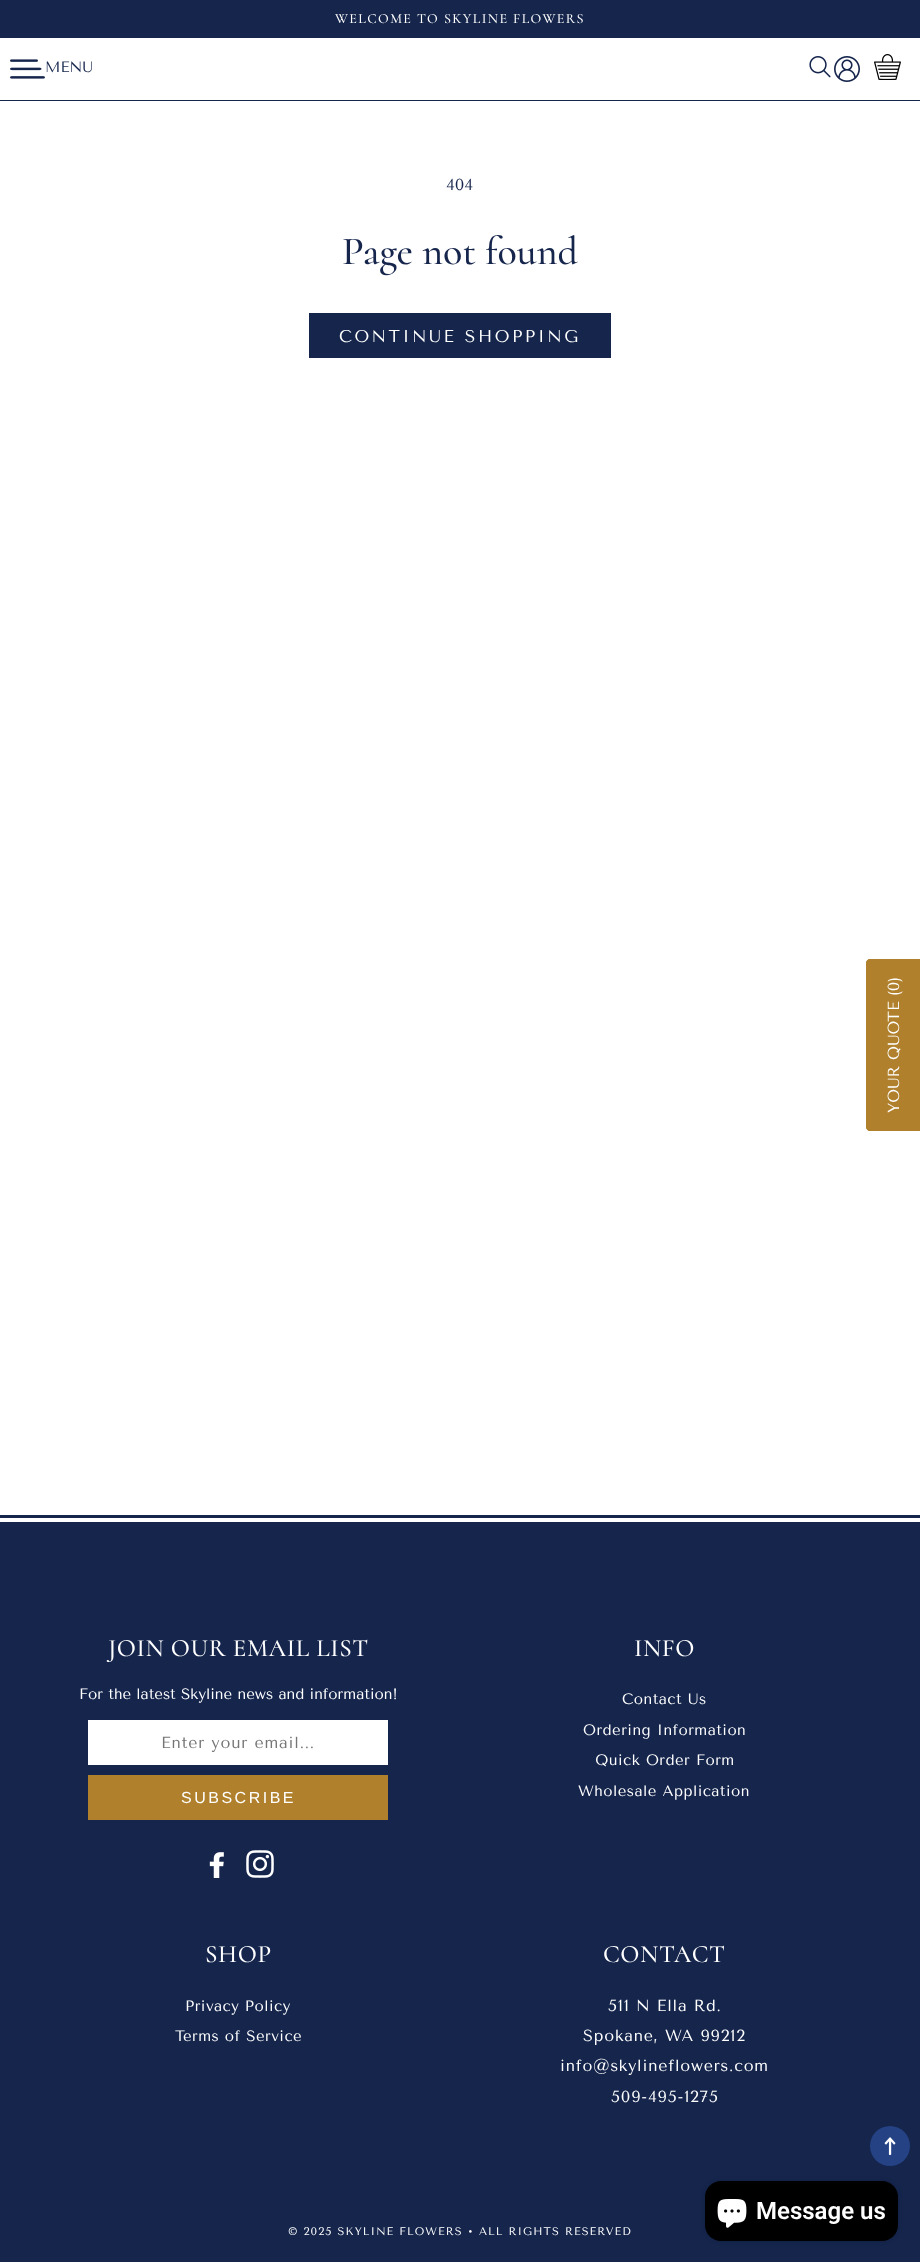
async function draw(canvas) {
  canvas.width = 920
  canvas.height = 2262
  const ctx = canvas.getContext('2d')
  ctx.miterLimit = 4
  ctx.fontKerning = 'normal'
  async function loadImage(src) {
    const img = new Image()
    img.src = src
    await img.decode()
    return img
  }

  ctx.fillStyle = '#fff'
  ctx.fillRect(0, 0, 920, 2262)
  ctx.fillStyle = '#15254c'
  ctx.fillRect(0, 0, 920, 38)
  ctx.letterSpacing = '1.4px'
  ctx.font = '500 14px Cormorant'
  ctx.fillStyle = '#fff'
  ctx.fillText('WELCOME TO SKYLINE FLOWERS', 335, 23)
  ctx.drawImage(await loadImage('image0.png'), 10, 59, 35, 20)
  ctx.letterSpacing = '0px'
  ctx.font = '15px Tenor Sans'
  ctx.fillStyle = '#15254c'
  ctx.fillText('MENU', 45, 72)
  ctx.drawImage(await loadImage('image1.png'), 809, 56, 22, 22)
  ctx.drawImage(await loadImage('image2.png'), 834, 56, 26, 26)
  ctx.drawImage(await loadImage('image3.png'), 874, 54, 27, 26)
  ctx.fillRect(0, 100, 920, 1)
  ctx.font = '16px Tenor Sans'
  ctx.fillText('404', 446, 190)
  ctx.font = '500 40px Cormorant'
  ctx.fillText('Page not found', 342, 264)
  ctx.fillRect(309, 313, 302, 45)
  ctx.letterSpacing = '2.5px'
  ctx.font = '17px Tenor Sans'
  ctx.fillStyle = '#fff'
  ctx.fillText('CONTINUE SHOPPING', 339, 342)
  ctx.fillStyle = '#b0802c'
  ctx.beginPath()
  ctx.moveTo(866, 1127)
  ctx.lineTo(866, 963)
  ctx.bezierCurveTo(866, 961, 868, 959, 870, 959)
  ctx.lineTo(920, 959)
  ctx.lineTo(920, 1131)
  ctx.lineTo(870, 1131)
  ctx.bezierCurveTo(868, 1131, 866, 1129, 866, 1127)
  ctx.closePath()
  ctx.fill()
  ctx.beginPath()
  ctx.moveTo(866, 1127)
  ctx.lineTo(866, 963)
  ctx.bezierCurveTo(866, 961, 868, 959, 870, 959)
  ctx.lineTo(920, 959)
  ctx.lineTo(920, 1131)
  ctx.lineTo(870, 1131)
  ctx.bezierCurveTo(868, 1131, 866, 1129, 866, 1127)
  ctx.closePath()
  ctx.moveTo(867, 1127)
  ctx.lineTo(867, 963)
  ctx.bezierCurveTo(867, 961, 868, 960, 870, 960)
  ctx.lineTo(920, 960)
  ctx.lineTo(920, 1130)
  ctx.lineTo(870, 1130)
  ctx.bezierCurveTo(868, 1130, 867, 1129, 867, 1127)
  ctx.closePath()
  ctx.fill('evenodd')
  ctx.letterSpacing = '0px'
  ctx.font = '16px Tenor Sans'
  ctx.fillStyle = '#fff'
  ctx.save()
  ctx.translate(899, 996)
  ctx.rotate(-90 * Math.PI / 180)
  ctx.fillText('(0)', 0, 0)
  ctx.restore()
  ctx.save()
  ctx.translate(899, 1113)
  ctx.rotate(-90 * Math.PI / 180)
  ctx.fillText('YOUR QUOTE', 0, 0)
  ctx.restore()
  ctx.fillStyle = '#15254c'
  ctx.fillRect(0, 1515, 920, 3)
  ctx.fillRect(0, 1522, 920, 740)
  ctx.letterSpacing = '0.6px'
  ctx.font = '500 25px Cormorant'
  ctx.fillStyle = '#fff'
  ctx.fillText('JOIN OUR EMAIL LIST', 108, 1656)
  ctx.letterSpacing = '0px'
  ctx.font = '15px Tenor Sans'
  ctx.fillText('For the latest Skyline news and information!', 79, 1699)
  ctx.fillRect(88, 1720, 300, 45)
  ctx.letterSpacing = '0.8px'
  ctx.font = '16px Tenor Sans'
  ctx.fillStyle = '#757575'
  ctx.fillText('Enter your email...', 161, 1748)
  ctx.fillStyle = '#b0802c'
  ctx.fillRect(88, 1775, 300, 45)
  ctx.letterSpacing = '2.5px'
  ctx.font = '16px Liberation Sans'
  ctx.fillStyle = '#fff'
  ctx.fillText('SUBSCRIBE', 181, 1803)
  ctx.drawImage(await loadImage('image4.png'), 209, 1852, 15, 26)
  ctx.drawImage(await loadImage('image5.png'), 246, 1850, 28, 28)
  ctx.letterSpacing = '0.6px'
  ctx.font = '500 25px Cormorant'
  ctx.fillText('INFO', 634, 1656)
  ctx.letterSpacing = '0.45px'
  ctx.font = '15px Tenor Sans'
  ctx.fillText('Contact Us', 622, 1704)
  ctx.fillText('Ordering Information', 583, 1735)
  ctx.fillText('Quick Order Form', 595, 1765)
  ctx.fillText('Wholesale Application', 578, 1796)
  ctx.letterSpacing = '0.6px'
  ctx.font = '500 25px Cormorant'
  ctx.fillText('SHOP', 205, 1962)
  ctx.letterSpacing = '0.45px'
  ctx.font = '15px Tenor Sans'
  ctx.fillText('Privacy Policy', 185, 2011)
  ctx.fillText('Terms of Service', 175, 2041)
  ctx.letterSpacing = '0.6px'
  ctx.font = '500 25px Cormorant'
  ctx.fillText('CONTACT', 603, 1962)
  ctx.letterSpacing = '0.8px'
  ctx.font = '16px Tenor Sans'
  ctx.fillText('511 N Ella Rd.', 608, 2011)
  ctx.fillText('Spokane, WA 99212', 583, 2041)
  ctx.fillText('info@skylineflowers.com', 560, 2071)
  ctx.fillText('509-495-1275', 611, 2102)
  ctx.letterSpacing = '1.1px'
  ctx.font = '11px Tenor Sans'
  ctx.fillText('© 2025 SKYLINE FLOWERS • ALL RIGHTS RESERVED', 288, 2235)
  ctx.fillStyle = '#254285'
  ctx.beginPath()
  ctx.arc(890, 2146, 20, 0, 2 * Math.PI)
  ctx.fill()
  ctx.drawImage(await loadImage('image6.png'), 884, 2137, 12, 18)
  ctx.fillStyle = '#00000026'
  ctx.filter = 'blur(2.5px)'
  ctx.beginPath()
  ctx.roundRect(705, 2181, 193, 60, 16)
  ctx.fill()
  ctx.filter = 'none'
  ctx.fillStyle = '#000'
  ctx.beginPath()
  ctx.roundRect(705, 2181, 193, 60, 16)
  ctx.fill()
  ctx.drawImage(await loadImage('image7.png'), 717, 2199, 30, 29)
  ctx.letterSpacing = '0px'
  ctx.font = '600 24px Roboto'
  ctx.fillStyle = '#fff'
  ctx.fillText('Message us', 756, 2219)
}

draw(document.querySelector('canvas'))
